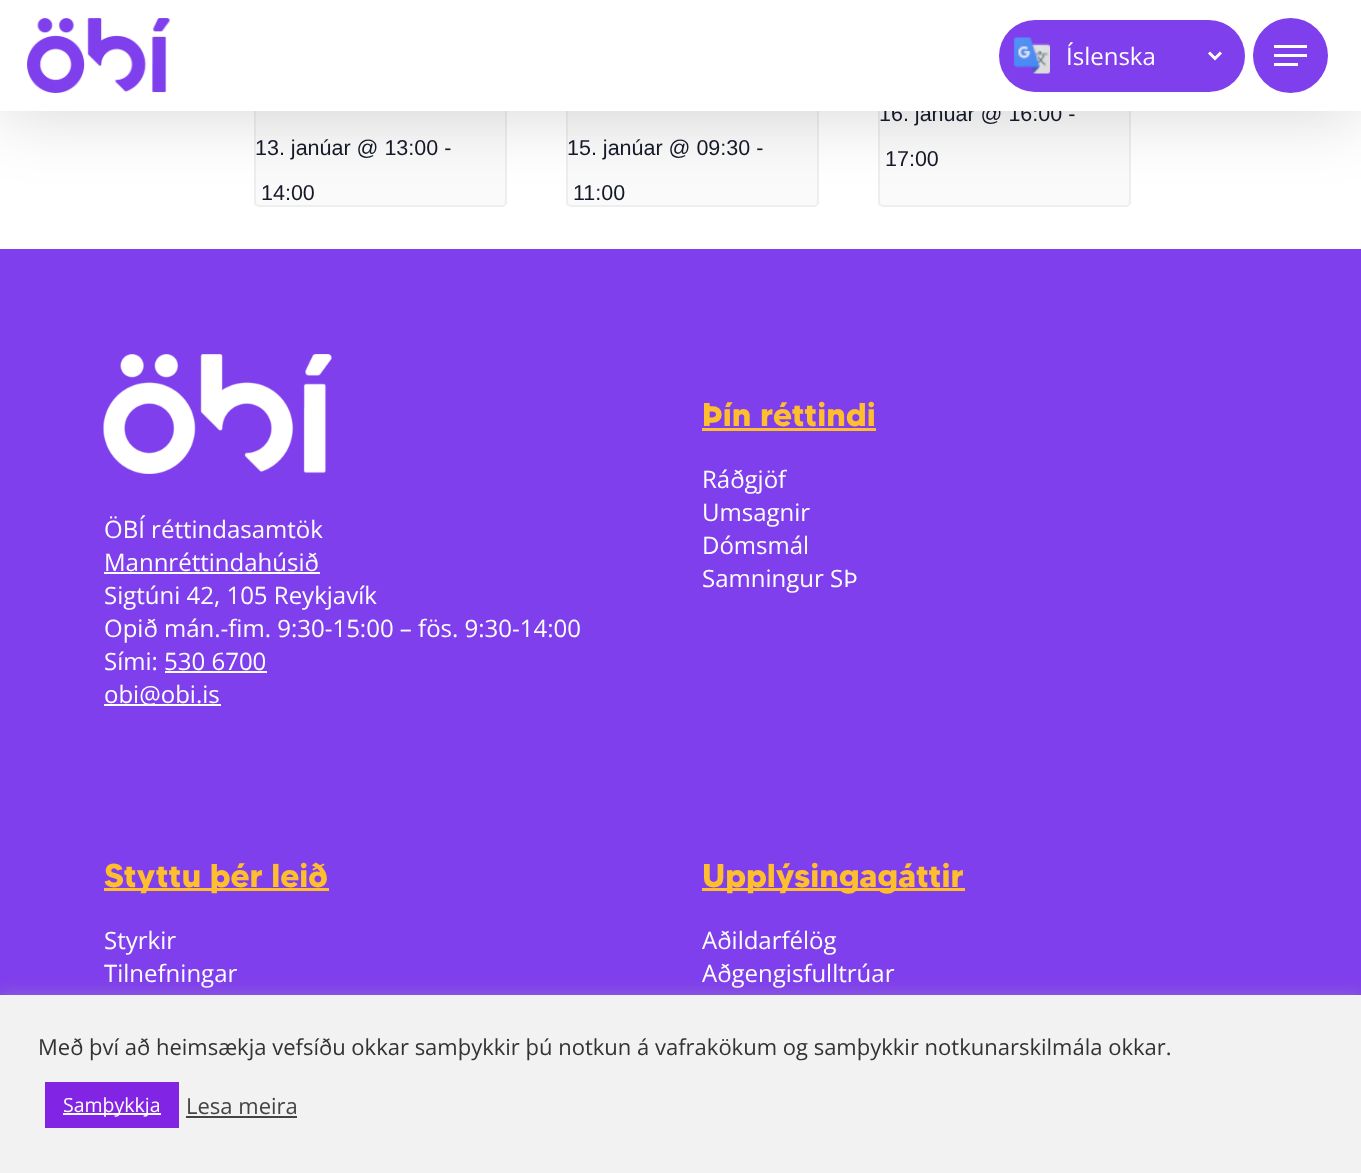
async function draw(canvas) {
  canvas.width = 1361
  canvas.height = 1173
  const ctx = canvas.getContext('2d')
  ctx.miterLimit = 4
  ctx.fontKerning = 'normal'
  async function loadImage(src) {
    const img = new Image()
    img.src = src
    await img.decode()
    return img
  }

  ctx.fillStyle = '#fff'
  ctx.fillRect(0, 0, 1361, 1173)
  ctx.fillStyle = '#fafafa'
  ctx.beginPath()
  ctx.roundRect(255, -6, 251, 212, 4)
  ctx.fill()
  ctx.strokeStyle = '#eee'
  ctx.lineWidth = 2
  ctx.stroke()
  ctx.beginPath()
  ctx.roundRect(567, -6, 251, 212, 4)
  ctx.fill()
  ctx.stroke()
  ctx.beginPath()
  ctx.roundRect(879, -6, 251, 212, 4)
  ctx.fill()
  ctx.stroke()
  ctx.fillStyle = '#00000026'
  ctx.filter = 'blur(34px)'
  ctx.beginPath()
  ctx.rect(0, 5, 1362, 111)
  ctx.fill()
  ctx.filter = 'none'
  ctx.font = '21.5px Liberation Sans'
  ctx.fillStyle = '#141827'
  ctx.fillText('16. janúar @ 16:00 -', 879, 121)
  ctx.fillStyle = '#fff'
  ctx.fillRect(0, 0, 1361, 111)
  ctx.drawImage(await loadImage('image0.png'), 27, 18, 144, 75)
  ctx.fillStyle = '#7f3fec'
  ctx.beginPath()
  ctx.roundRect(999, 20, 246, 72, 36)
  ctx.fill()
  ctx.drawImage(await loadImage('image1.png'), 1013, 37, 37, 37)
  ctx.beginPath()
  ctx.moveTo(1209, 52.5)
  ctx.lineTo(1215, 58.5)
  ctx.lineTo(1221, 52.5)
  ctx.strokeStyle = '#fff'
  ctx.lineWidth = 3
  ctx.stroke()
  ctx.font = '24px Open Sans'
  ctx.fillStyle = '#fff'
  ctx.fillText('Íslenska', 1066, 65)
  ctx.fillStyle = '#7f3fec'
  ctx.beginPath()
  ctx.arc(1290.5, 55.5, 37.5, 0, 2 * Math.PI)
  ctx.fill()
  ctx.fillStyle = '#fff'
  ctx.fillRect(1274, 45, 33, 3)
  ctx.fillRect(1274, 63, 24, 3)
  ctx.fillRect(1274, 54, 33, 3)
  ctx.font = '21.5px Liberation Sans'
  ctx.fillStyle = '#141827'
  ctx.fillText('13. janúar @ 13:00 -', 255, 155)
  ctx.fillText('14:00', 261, 200)
  ctx.fillText('15. janúar @ 09:30 -', 567, 155)
  ctx.fillText('11:00', 573, 200)
  ctx.fillText('17:00', 885, 166)
  ctx.fillStyle = '#7f3fec'
  ctx.fillRect(0, 249, 1361, 746)
  ctx.drawImage(await loadImage('image2.png'), 103, 354, 229, 120)
  ctx.font = '24px Open Sans'
  ctx.fillStyle = '#fff'
  ctx.fillText('ÖBÍ réttindasamtök', 104, 538)
  ctx.fillText('Mannréttindahúsið', 104, 571)
  ctx.fillRect(104, 572, 216, 2)
  ctx.fillText('Sigtúni 42, 105 Reykjavík', 104, 604)
  ctx.fillText('Opið mán.-fim. 9:30-15:00 – fös. 9:30-14:00', 104, 637)
  ctx.fillText('Sími: 530 6700', 104, 670)
  ctx.fillRect(165, 671, 102, 2)
  ctx.fillRect(104, 704, 117, 2)
  ctx.fillText('obi@obi.is', 104, 703)
  ctx.font = 'bold 33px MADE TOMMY'
  ctx.fillStyle = '#ffbe2e'
  ctx.fillText('Þín réttindi', 702, 426)
  ctx.fillRect(702, 428, 174, 3)
  ctx.font = '24px Open Sans'
  ctx.fillStyle = '#fff'
  ctx.fillText('Ráðgjöf', 702, 488)
  ctx.fillText('Umsagnir', 702, 521)
  ctx.fillText('Dómsmál', 702, 554)
  ctx.fillText('Samningur SÞ', 702, 587)
  ctx.fillStyle = '#ffbe2e'
  ctx.fillRect(104, 888, 225, 3)
  ctx.font = 'bold 33px MADE TOMMY'
  ctx.fillText('Styttu þér leið', 104, 887)
  ctx.font = '24px Open Sans'
  ctx.fillStyle = '#fff'
  ctx.fillText('Styrkir', 104, 949)
  ctx.fillText('Tilnefningar', 104, 982)
  ctx.fillStyle = '#ffbe2e'
  ctx.fillRect(702, 888, 263, 3)
  ctx.font = 'bold 33px MADE TOMMY'
  ctx.fillText('Upplýsingagáttir', 702, 887)
  ctx.font = '24px Open Sans'
  ctx.fillStyle = '#fff'
  ctx.fillText('Aðildarfélög', 702, 949)
  ctx.fillText('Aðgengisfulltrúar', 702, 982)
  ctx.fillStyle = '#acabab4d'
  ctx.filter = 'blur(7.5px)'
  ctx.beginPath()
  ctx.rect(0, 993, 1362, 179)
  ctx.fill()
  ctx.filter = 'none'
  ctx.fillStyle = '#f2f2f2'
  ctx.fillRect(0, 995, 1361, 178)
  ctx.font = '22px Open Sans'
  ctx.fillStyle = '#333'
  ctx.fillText('Með því að heimsækja vefsíðu okkar samþykkir þú notkun á vafrakökum og samþykkir notkunarskilmála okkar.', 38, 1055)
  ctx.fillStyle = '#8224e3'
  ctx.fillRect(45, 1082, 134, 46)
  ctx.fillStyle = '#fff'
  ctx.fillRect(63, 1113, 98, 2)
  ctx.font = '19.5px Open Sans'
  ctx.fillText('Samþykkja', 63, 1112)
  ctx.font = '22px Open Sans'
  ctx.fillStyle = '#444'
  ctx.fillText('Lesa meira', 186, 1114)
  ctx.fillRect(186, 1116, 111, 2)
}

draw(document.querySelector('canvas'))
